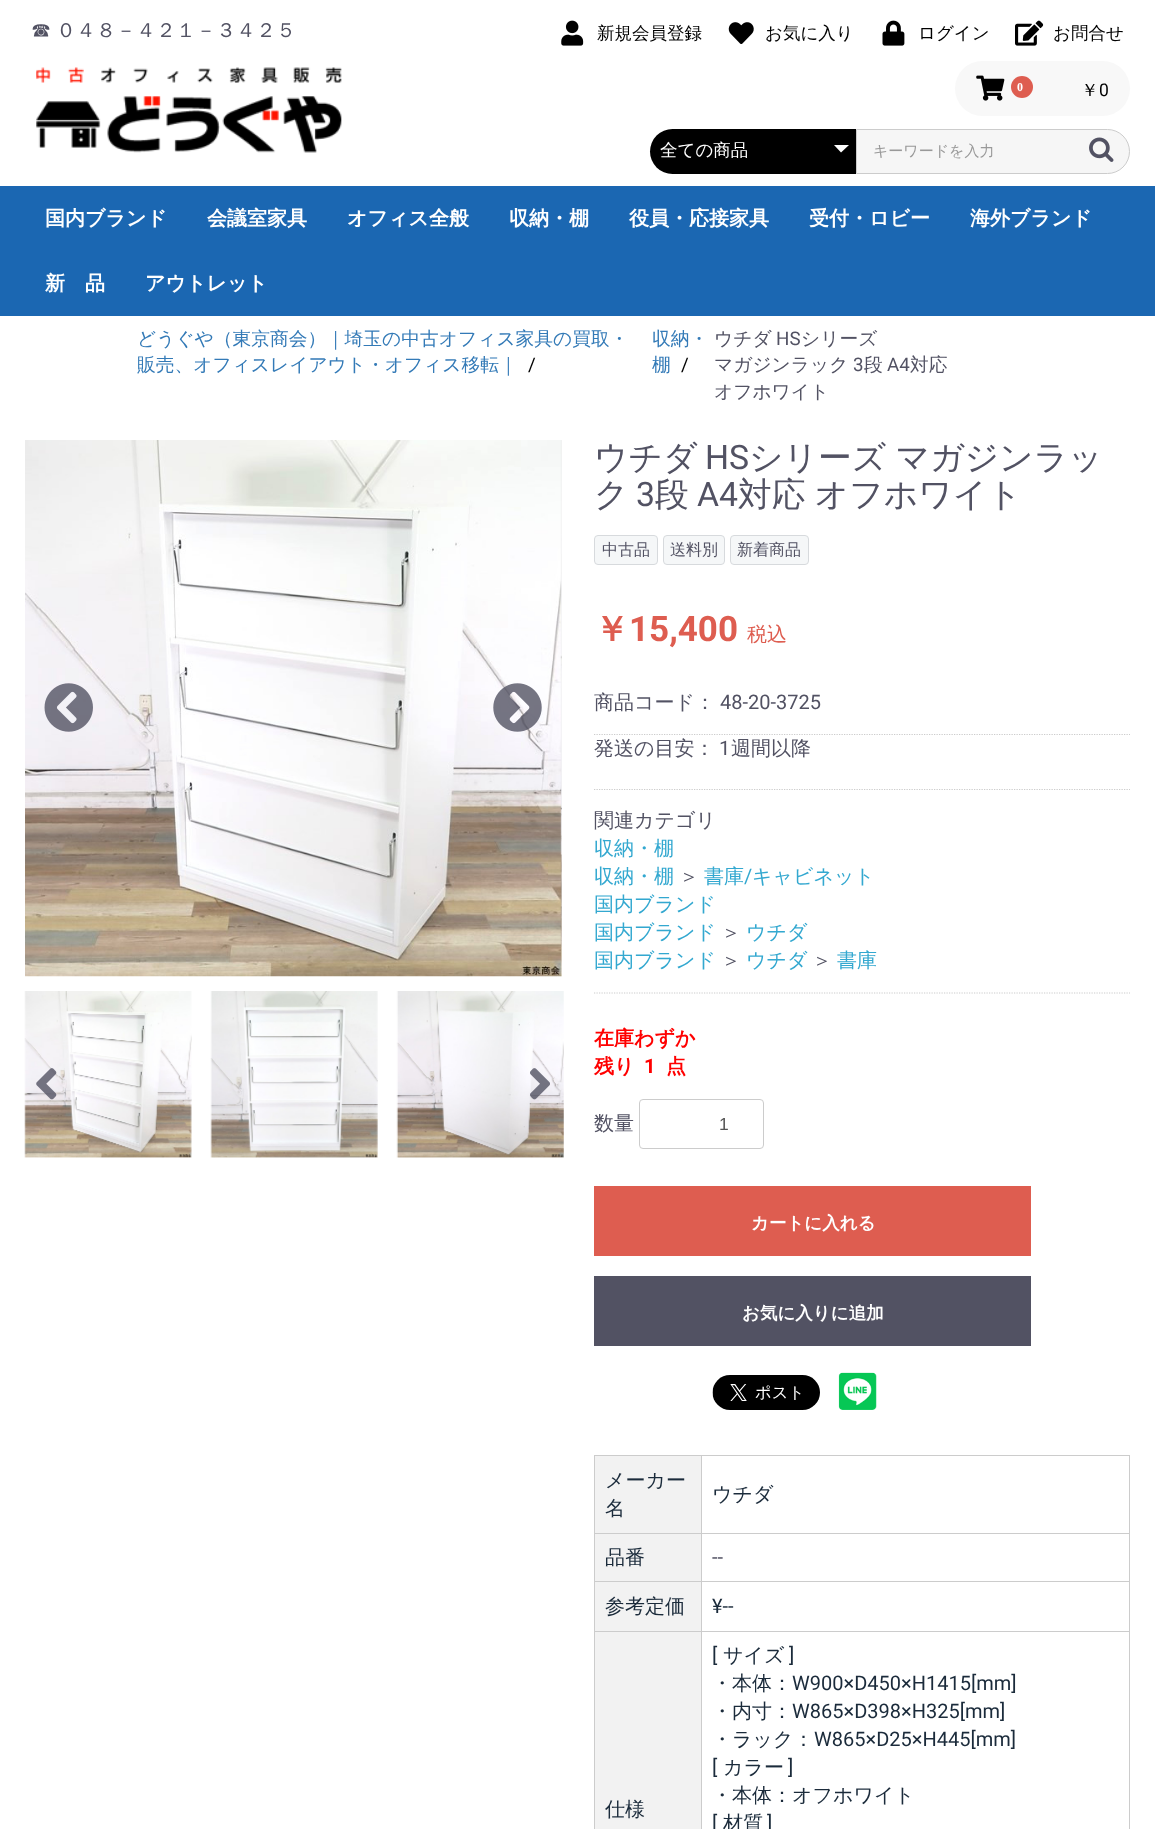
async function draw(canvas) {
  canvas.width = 1155
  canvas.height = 1829
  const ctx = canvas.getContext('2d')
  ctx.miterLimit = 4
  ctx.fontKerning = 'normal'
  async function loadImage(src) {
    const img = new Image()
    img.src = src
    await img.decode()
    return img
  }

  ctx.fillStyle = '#fff'
  ctx.fillRect(0, 0, 1155, 1829)
  ctx.wordSpacing = '-1px'
  ctx.font = '500 20px WenQuanYi Zen Hei'
  ctx.fillStyle = '#525263'
  ctx.fillText('☎ ０４８－４２１－３４２５', 31, 37)
  ctx.drawImage(await loadImage('image0.png'), 561, 20, 23, 26)
  ctx.wordSpacing = '0px'
  ctx.font = '500 17.5px WenQuanYi Zen Hei'
  ctx.fillStyle = '#000'
  ctx.fillText('新規会員登録', 597, 39)
  ctx.drawImage(await loadImage('image1.png'), 728, 22, 26, 22)
  ctx.fillText('お気に入り', 765, 39)
  ctx.drawImage(await loadImage('image2.png'), 882, 20, 23, 26)
  ctx.fillText('ログイン', 918, 39)
  ctx.drawImage(await loadImage('image3.png'), 1015, 20, 29, 26)
  ctx.fillText('お問合せ', 1053, 39)
  ctx.drawImage(await loadImage('image4.png'), 36, 67, 306, 86)
  ctx.fillStyle = '#f8f8f8'
  ctx.beginPath()
  ctx.roundRect(955, 61, 175, 55, 27.5)
  ctx.fill()
  ctx.drawImage(await loadImage('image5.png'), 976, 75, 29, 26)
  ctx.fillStyle = '#de5d50'
  ctx.beginPath()
  ctx.arc(1022, 87, 11, 0, 2 * Math.PI)
  ctx.fill()
  ctx.font = 'bold 12px Liberation Serif'
  ctx.fillStyle = '#fff'
  ctx.fillText('0', 1017, 91)
  ctx.font = '500 17.5px WenQuanYi Zen Hei'
  ctx.fillStyle = '#000'
  ctx.fillText('￥', 1081, 96)
  ctx.font = '17.5px Roboto'
  ctx.fillText('0', 1099, 96)
  ctx.beginPath()
  ctx.roundRect(650, 129, 206, 45, [22.5, 0, 0, 22.5])
  ctx.fill()
  ctx.font = '500 17.5px WenQuanYi Zen Hei'
  ctx.fillStyle = '#fff'
  ctx.fillText('全ての商品', 660, 156)
  ctx.beginPath()
  ctx.moveTo(834, 145)
  ctx.lineTo(849, 145)
  ctx.lineTo(841, 152.5)
  ctx.closePath()
  ctx.fill()
  ctx.fillStyle = '#f6f6f6'
  ctx.beginPath()
  ctx.roundRect(856.5, 129.5, 273, 44, [0, 22, 22, 0])
  ctx.fill()
  ctx.strokeStyle = '#ccc'
  ctx.stroke()
  ctx.font = '500 15px WenQuanYi Zen Hei'
  ctx.fillStyle = '#999'
  ctx.fillText('キーワードを入力', 873, 156)
  ctx.drawImage(await loadImage('image6.png'), 1089, 137, 25, 25)
  ctx.fillStyle = '#1b67b2'
  ctx.fillRect(0, 186, 1155, 130)
  ctx.font = 'bold 20px WenQuanYi Zen Hei'
  ctx.fillStyle = '#fff'
  ctx.fillText('国内ブランド', 45, 225)
  ctx.fillText('会議室家具', 207, 225)
  ctx.fillText('オフィス全般', 347, 225)
  ctx.fillText('収納・棚', 509, 225)
  ctx.fillText('役員・応接家具', 629, 225)
  ctx.fillText('受付・ロビー', 809, 225)
  ctx.fillText('海外ブランド', 970, 225)
  ctx.fillText('新　品', 45, 290)
  ctx.fillText('アウトレット', 145, 290)
  ctx.font = '500 18.75px WenQuanYi Zen Hei'
  ctx.fillStyle = '#337ab7'
  ctx.fillText('どうぐや（東京商会）｜埼玉の中古オフィス家具の買取・', 137, 345)
  ctx.fillText('販売、オフィスレイアウト・オフィス移転｜', 137, 371)
  ctx.font = '18.75px Roboto'
  ctx.fillStyle = '#000'
  ctx.fillText('/', 528, 371)
  ctx.font = '500 18.75px WenQuanYi Zen Hei'
  ctx.fillStyle = '#337ab7'
  ctx.fillText('収納・', 652, 345)
  ctx.fillText('棚', 652, 371)
  ctx.font = '18.75px Roboto'
  ctx.fillStyle = '#000'
  ctx.fillText('/', 681, 371)
  ctx.font = '500 18.75px WenQuanYi Zen Hei'
  ctx.fillStyle = '#525263'
  ctx.fillText('ウチダ', 714, 345)
  ctx.font = '18.75px Roboto'
  ctx.fillText('HS', 776, 345)
  ctx.font = '500 18.75px WenQuanYi Zen Hei'
  ctx.fillText('シリーズ', 801, 345)
  ctx.fillText('マガジンラック', 714, 371)
  ctx.font = '18.75px Roboto'
  ctx.fillText('3', 853, 371)
  ctx.font = '500 18.75px WenQuanYi Zen Hei'
  ctx.fillText('段', 864, 371)
  ctx.font = '18.75px Roboto'
  ctx.fillText('A4', 887, 371)
  ctx.font = '500 18.75px WenQuanYi Zen Hei'
  ctx.fillText('対応', 910, 371)
  ctx.fillText('オフホワイト', 714, 398)
  ctx.drawImage(await loadImage('image7.png'), 25, 440, 537, 537)
  ctx.drawImage(await loadImage('image8.png'), 560, 440, 2, 537)
  ctx.drawImage(await loadImage('image9.png'), 44, 683, 49, 49)
  ctx.drawImage(await loadImage('image10.png'), 493, 683, 49, 49)
  ctx.drawImage(await loadImage('image11.png'), 24, 991, 168, 167)
  ctx.drawImage(await loadImage('image12.png'), 210, 991, 168, 167)
  ctx.drawImage(await loadImage('image13.png'), 396, 991, 168, 167)
  ctx.drawImage(await loadImage('image14.png'), 36, 1068, 21, 32)
  ctx.drawImage(await loadImage('image15.png'), 530, 1068, 20, 32)
  ctx.font = '500 33.75px WenQuanYi Zen Hei'
  ctx.fillText('ウチダ', 594, 469)
  ctx.font = '33.75px Roboto'
  ctx.fillText('HS', 705, 469)
  ctx.wordSpacing = '-1px'
  ctx.font = '500 33.75px WenQuanYi Zen Hei'
  ctx.fillText('シリーズ マガジンラッ', 749, 469)
  ctx.wordSpacing = '0px'
  ctx.fillText('ク', 594, 506)
  ctx.font = '33.75px Roboto'
  ctx.fillText('3', 636, 506)
  ctx.font = '500 33.75px WenQuanYi Zen Hei'
  ctx.fillText('段', 655, 506)
  ctx.font = '33.75px Roboto'
  ctx.fillText('A4', 697, 506)
  ctx.wordSpacing = '-1px'
  ctx.font = '500 33.75px WenQuanYi Zen Hei'
  ctx.fillText('対応 オフホワイト', 738, 506)
  ctx.fillStyle = '#f5f7f8'
  ctx.beginPath()
  ctx.roundRect(594.5, 535.5, 63, 29, 3.5)
  ctx.fill()
  ctx.strokeStyle = '#d7dadd'
  ctx.stroke()
  ctx.wordSpacing = '0px'
  ctx.font = '500 16px WenQuanYi Zen Hei'
  ctx.fillStyle = '#525263'
  ctx.fillText('中古品', 602, 555)
  ctx.fillStyle = '#f5f7f8'
  ctx.beginPath()
  ctx.roundRect(663.5, 535.5, 61, 29, 3.5)
  ctx.fill()
  ctx.stroke()
  ctx.fillStyle = '#525263'
  ctx.fillText('送料別', 670, 555)
  ctx.fillStyle = '#f5f7f8'
  ctx.beginPath()
  ctx.roundRect(730.5, 535.5, 78, 29, 3.5)
  ctx.fill()
  ctx.stroke()
  ctx.fillStyle = '#525263'
  ctx.fillText('新着商品', 737, 555)
  ctx.font = 'bold 35px WenQuanYi Zen Hei'
  ctx.fillStyle = '#de5d50'
  ctx.fillText('￥', 594, 641)
  ctx.font = 'bold 35px Roboto'
  ctx.fillText('15,400', 629, 641)
  ctx.font = '500 20px WenQuanYi Zen Hei'
  ctx.fillText('税込', 747, 641)
  ctx.beginPath()
  ctx.moveTo(594, 734.5)
  ctx.lineTo(1130, 734.5)
  ctx.strokeStyle = '#ccc'
  ctx.lineWidth = 1.2
  ctx.setLineDash([1.25, 1.25])
  ctx.stroke()
  ctx.fillStyle = '#525263'
  ctx.fillText('商品コード：', 594, 709)
  ctx.font = '20px Roboto'
  ctx.fillText('48-20-3725', 720, 709)
  ctx.font = '500 20px WenQuanYi Zen Hei'
  ctx.fillText('発送の目安：', 594, 755)
  ctx.font = '20px Roboto'
  ctx.fillText('1', 719, 755)
  ctx.font = '500 20px WenQuanYi Zen Hei'
  ctx.fillText('週間以降', 731, 755)
  ctx.beginPath()
  ctx.moveTo(594, 789.5)
  ctx.lineTo(1130, 789.5)
  ctx.stroke()
  ctx.beginPath()
  ctx.moveTo(594, 993)
  ctx.lineTo(1130, 993)
  ctx.stroke()
  ctx.fillText('関連カテゴリ', 594, 827)
  ctx.fillStyle = '#33a8d0'
  ctx.fillText('収納・棚', 594, 855)
  ctx.fillText('収納・棚', 594, 883)
  ctx.fillStyle = '#525263'
  ctx.fillText('＞', 679, 883)
  ctx.fillStyle = '#33a8d0'
  ctx.fillText('書庫', 704, 883)
  ctx.font = '20px Roboto'
  ctx.fillText('/', 744, 883)
  ctx.font = '500 20px WenQuanYi Zen Hei'
  ctx.fillText('キャビネット', 752, 883)
  ctx.fillText('国内ブランド', 594, 911)
  ctx.fillText('国内ブランド', 594, 939)
  ctx.fillStyle = '#525263'
  ctx.fillText('＞', 721, 939)
  ctx.fillStyle = '#33a8d0'
  ctx.fillText('ウチダ', 746, 939)
  ctx.fillText('国内ブランド', 594, 967)
  ctx.fillStyle = '#525263'
  ctx.fillText('＞', 721, 967)
  ctx.fillStyle = '#33a8d0'
  ctx.fillText('ウチダ', 746, 967)
  ctx.fillStyle = '#525263'
  ctx.fillText('＞', 812, 967)
  ctx.fillStyle = '#33a8d0'
  ctx.fillText('書庫', 837, 967)
  ctx.font = 'bold 20px WenQuanYi Zen Hei'
  ctx.fillStyle = '#f00'
  ctx.fillText('在庫わずか', 594, 1045)
  ctx.fillText('残り', 594, 1073)
  ctx.font = 'bold 20px Roboto'
  ctx.fillText('1', 644, 1073)
  ctx.font = 'bold 20px WenQuanYi Zen Hei'
  ctx.fillText('点', 666, 1073)
  ctx.font = '500 20px WenQuanYi Zen Hei'
  ctx.fillStyle = '#525263'
  ctx.fillText('数量', 594, 1130)
  ctx.beginPath()
  ctx.roundRect(639.5, 1099.5, 124, 49, 3.5)
  ctx.lineWidth = 1
  ctx.setLineDash([])
  ctx.stroke()
  ctx.font = '17.5px Liberation Sans'
  ctx.fillStyle = '#555'
  ctx.fillText('1', 719, 1130)
  ctx.fillStyle = '#de5d50'
  ctx.fillRect(594, 1186, 437, 70)
  ctx.font = 'bold 17.5px WenQuanYi Zen Hei'
  ctx.fillStyle = '#fff'
  ctx.fillText('カートに入れる', 751, 1229)
  ctx.fillStyle = '#525263'
  ctx.fillRect(594, 1276, 437, 70)
  ctx.fillStyle = '#fff'
  ctx.fillText('お気に入りに追加', 742, 1319)
  ctx.drawImage(await loadImage('image16.png'), 712, 1375, 108, 35)
  ctx.drawImage(await loadImage('image17.png'), 838, 1372, 39, 38)
  ctx.fillStyle = '#f2f2f2'
  ctx.fillRect(595, 1456, 106, 77)
  ctx.fillStyle = '#ccc'
  ctx.fillRect(701, 1455, 429, 1)
  ctx.fillRect(701, 1533, 429, 1)
  ctx.fillStyle = '#f2f2f2'
  ctx.fillRect(595, 1534, 106, 97)
  ctx.fillStyle = '#ccc'
  ctx.fillRect(701, 1581, 429, 1)
  ctx.fillRect(701, 1631, 429, 1)
  ctx.fillRect(701, 1631, 1, 198)
  ctx.fillRect(594, 1631, 109, 1)
  ctx.fillRect(701, 1581, 1, 52)
  ctx.fillRect(594, 1581, 109, 1)
  ctx.fillRect(701, 1533, 1, 50)
  ctx.fillRect(594, 1533, 109, 1)
  ctx.fillRect(701, 1455, 1, 79)
  ctx.fillRect(594, 1455, 109, 1)
  ctx.fillRect(594, 1631, 1, 198)
  ctx.fillRect(594, 1581, 1, 52)
  ctx.fillRect(594, 1533, 1, 50)
  ctx.fillRect(594, 1455, 1, 79)
  ctx.font = '500 20px WenQuanYi Zen Hei'
  ctx.fillStyle = '#1b2b3b'
  ctx.fillText('メーカー', 605, 1487)
  ctx.fillText('名', 605, 1515)
  ctx.fillStyle = '#ccc'
  ctx.fillRect(1129, 1631, 1, 198)
  ctx.fillRect(1129, 1581, 1, 52)
  ctx.fillRect(1129, 1533, 1, 50)
  ctx.fillRect(1129, 1455, 1, 79)
  ctx.fillStyle = '#1b2b3b'
  ctx.fillText('ウチダ', 712, 1501)
  ctx.fillText('品番', 605, 1564)
  ctx.font = '20px Roboto'
  ctx.fillStyle = '#525263'
  ctx.fillText('--', 712, 1564)
  ctx.font = '500 20px WenQuanYi Zen Hei'
  ctx.fillStyle = '#1b2b3b'
  ctx.fillText('参考定価', 605, 1613)
  ctx.font = '20px Roboto'
  ctx.fillText('¥--', 712, 1613)
  ctx.fillStyle = '#f2f2f2'
  ctx.fillRect(595, 1632, 106, 197)
  ctx.font = '500 20px WenQuanYi Zen Hei'
  ctx.fillStyle = '#1b2b3b'
  ctx.fillText('仕様', 605, 1816)
  ctx.font = '20px Roboto'
  ctx.fillText('[', 712, 1662)
  ctx.font = '500 20px WenQuanYi Zen Hei'
  ctx.fillText('サイズ', 723, 1662)
  ctx.font = '20px Roboto'
  ctx.fillText(']', 789, 1662)
  ctx.font = '500 20px WenQuanYi Zen Hei'
  ctx.fillText('・本体：', 712, 1690)
  ctx.font = '20px Roboto'
  ctx.fillText('W900×D450×H1415[mm]', 792, 1690)
  ctx.font = '500 20px WenQuanYi Zen Hei'
  ctx.fillText('・内寸：', 712, 1718)
  ctx.font = '20px Roboto'
  ctx.fillText('W865×D398×H325[mm]', 792, 1718)
  ctx.font = '500 20px WenQuanYi Zen Hei'
  ctx.fillText('・ラック：', 712, 1746)
  ctx.font = '20px Roboto'
  ctx.fillText('W865×D25×H445[mm]', 814, 1746)
  ctx.fillText('[', 712, 1774)
  ctx.font = '500 20px WenQuanYi Zen Hei'
  ctx.fillText('カラー', 723, 1774)
  ctx.font = '20px Roboto'
  ctx.fillText(']', 788, 1774)
  ctx.font = '500 20px WenQuanYi Zen Hei'
  ctx.fillText('・本体：オフホワイト', 712, 1802)
  ctx.font = '20px Roboto'
  ctx.fillText('[', 712, 1830)
  ctx.font = '500 20px WenQuanYi Zen Hei'
  ctx.fillText('材質', 723, 1830)
  ctx.font = '20px Roboto'
  ctx.fillText(']', 767, 1830)
}

draw(document.querySelector('canvas'))
